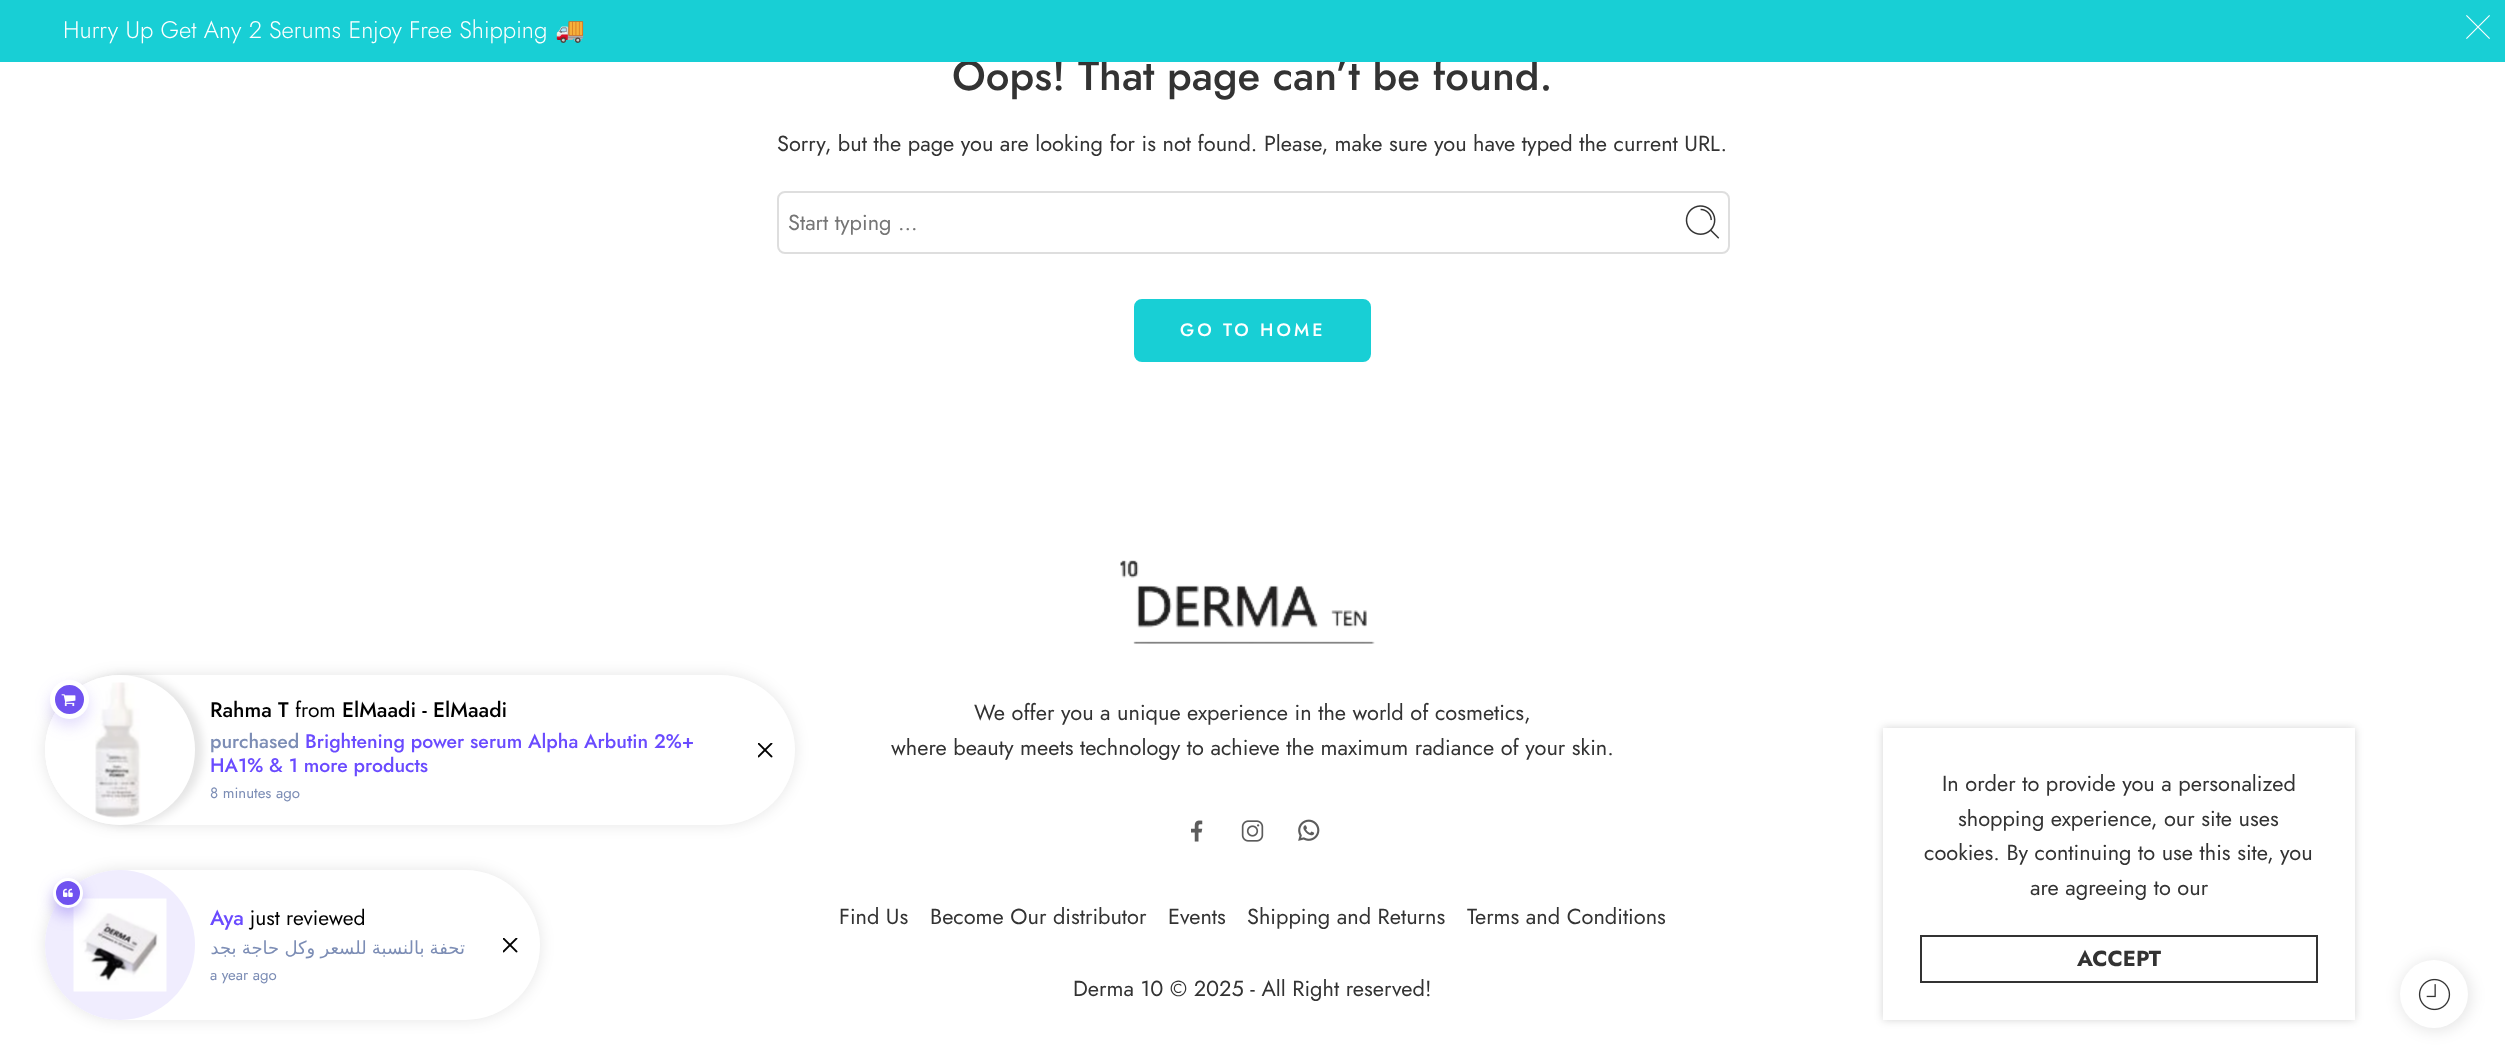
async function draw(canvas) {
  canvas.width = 2505
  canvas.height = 1064
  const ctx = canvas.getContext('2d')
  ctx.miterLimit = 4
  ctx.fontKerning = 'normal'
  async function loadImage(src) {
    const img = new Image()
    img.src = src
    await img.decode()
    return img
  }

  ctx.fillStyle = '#fff'
  ctx.fillRect(0, 0, 2505, 1064)
  ctx.font = '500 42px Jost'
  ctx.fillStyle = '#333'
  ctx.fillText('Oops! That page can’t be found.', 952, 90)
  ctx.fillStyle = '#18cfd5'
  ctx.fillRect(0, 0, 2505, 62)
  ctx.font = '300 24px Jost'
  ctx.fillStyle = '#fff'
  ctx.fillText('Hurry Up Get Any 2 Serums Enjoy Free Shipping', 63, 38)
  ctx.font = '24px Noto Color Emoji'
  ctx.fillText('🚚', 555, 38)
  ctx.drawImage(await loadImage('image0.png'), 2466, 15, 24, 24)
  ctx.fillStyle = '#0000001a'
  ctx.filter = 'blur(7.5px)'
  ctx.beginPath()
  ctx.roundRect(45, 675, 750, 150, 75)
  ctx.fill()
  ctx.filter = 'none'
  ctx.fillStyle = '#fff'
  ctx.beginPath()
  ctx.roundRect(45, 675, 750, 150, 75)
  ctx.fill()
  ctx.fillStyle = '#0000001a'
  ctx.filter = 'blur(4px)'
  ctx.beginPath()
  ctx.roundRect(53, 675, 150, 150, 75)
  ctx.fill()
  ctx.filter = 'none'
  ctx.fillStyle = '#fff'
  ctx.beginPath()
  ctx.arc(120, 750, 75, 0, 2 * Math.PI)
  ctx.fill()
  ctx.drawImage(await loadImage('image2.png'), 95, 682, 46, 136)
  ctx.fillStyle = '#7052f033'
  ctx.filter = 'blur(7.5px)'
  ctx.beginPath()
  ctx.roundRect(50, 687, 39, 39, 19.5)
  ctx.fill()
  ctx.filter = 'none'
  ctx.fillStyle = '#7052f0'
  ctx.beginPath()
  ctx.arc(69.5, 699.5, 17, 0, 2 * Math.PI)
  ctx.fill()
  ctx.strokeStyle = '#fff'
  ctx.lineWidth = 5
  ctx.stroke()
  ctx.drawImage(await loadImage('image1.png'), 61, 694, 15, 13)
  ctx.font = '500 21px Jost'
  ctx.fillStyle = '#000'
  ctx.fillText('Rahma T', 210, 717)
  ctx.font = '21px Jost'
  ctx.fillText('from', 295, 717)
  ctx.font = '500 21px Jost'
  ctx.fillText('ElMaadi - ElMaadi', 342, 717)
  ctx.font = '500 19.5px Jost'
  ctx.fillStyle = '#7c8db5'
  ctx.fillText('purchased', 210, 748)
  ctx.fillStyle = '#6a4bff'
  ctx.fillText('Brightening power serum Alpha Arbutin 2%+', 305, 748)
  ctx.fillText('HA1% & 1 more products', 210, 772)
  ctx.font = '15px Jost'
  ctx.fillStyle = '#7c8db5'
  ctx.fillText('8 minutes ago', 210, 798)
  ctx.drawImage(await loadImage('image3.png'), 758, 743, 15, 15)
  ctx.fillStyle = '#0000001a'
  ctx.filter = 'blur(7.5px)'
  ctx.beginPath()
  ctx.roundRect(45, 870, 495, 150, 75)
  ctx.fill()
  ctx.filter = 'none'
  ctx.fillStyle = '#fff'
  ctx.beginPath()
  ctx.roundRect(45, 870, 495, 150, 75)
  ctx.fill()
  ctx.fillStyle = '#f0edfe'
  ctx.beginPath()
  ctx.arc(120, 945, 75, 0, 2 * Math.PI)
  ctx.fill()
  ctx.drawImage(await loadImage('image5.png'), 73, 898, 94, 94)
  ctx.fillStyle = '#7052f066'
  ctx.filter = 'blur(7.5px)'
  ctx.beginPath()
  ctx.roundRect(53, 885, 30, 30, 15)
  ctx.fill()
  ctx.filter = 'none'
  ctx.fillStyle = '#7052f0'
  ctx.beginPath()
  ctx.arc(68, 893, 13.5, 0, 2 * Math.PI)
  ctx.fill()
  ctx.lineWidth = 3
  ctx.stroke()
  ctx.drawImage(await loadImage('image4.png'), 63, 888, 10, 9)
  ctx.font = '500 21px Jost'
  ctx.fillStyle = '#6a4bff'
  ctx.fillText('Aya', 210, 925)
  ctx.font = '21px Jost'
  ctx.fillStyle = '#000'
  ctx.fillText('just reviewed', 250, 925)
  ctx.wordSpacing = '-0.5px'
  ctx.direction = 'rtl'
  ctx.font = '18px DejaVu Sans'
  ctx.fillStyle = '#7c8db5'
  ctx.fillText('تحفة بالنسبة للسعر وكل حاجة بجد', 465, 954)
  ctx.wordSpacing = '0px'
  ctx.direction = 'ltr'
  ctx.font = '15px Jost'
  ctx.fillText('a year ago', 210, 980)
  ctx.drawImage(await loadImage('image3.png'), 503, 938, 15, 15)
  ctx.font = '21.75px Jost'
  ctx.fillStyle = '#333'
  ctx.fillText('Sorry, but the page you are looking for is not found. Please, make sure you have typed the current URL.', 777, 151)
  ctx.beginPath()
  ctx.roundRect(778, 192, 951, 61, 7)
  ctx.strokeStyle = '#dedede'
  ctx.lineWidth = 2
  ctx.stroke()
  ctx.fillStyle = '#757575'
  ctx.fillText('Start typing ...', 788, 230)
  ctx.drawImage(await loadImage('image6.png'), 1685, 205, 35, 34)
  ctx.fillStyle = '#18cfd5'
  ctx.beginPath()
  ctx.roundRect(1135, 300, 235, 61, 7)
  ctx.fill()
  ctx.strokeStyle = '#18cfd5'
  ctx.stroke()
  ctx.letterSpacing = '3px'
  ctx.font = '500 18px Jost'
  ctx.fillStyle = '#fff'
  ctx.fillText('GO TO HOME', 1180, 336)
  ctx.drawImage(await loadImage('image7.png'), 1120, 560, 255, 84)
  ctx.letterSpacing = '0px'
  ctx.font = '21.75px Jost'
  ctx.fillStyle = '#333'
  ctx.fillText('We offer you a unique experience in the world of cosmetics,', 974, 720)
  ctx.fillText('where beauty meets technology to achieve the maximum radiance of your skin.', 891, 755)
  ctx.drawImage(await loadImage('image8.png'), 1191, 820, 12, 22)
  ctx.drawImage(await loadImage('image9.png'), 1241, 820, 23, 22)
  ctx.drawImage(await loadImage('image10.png'), 1298, 819, 22, 22)
  ctx.fillText('Find Us', 839, 924)
  ctx.fillText('Become Our distributor', 930, 924)
  ctx.fillText('Events', 1168, 924)
  ctx.fillText('Shipping and Returns', 1247, 924)
  ctx.fillText('Terms and Conditions', 1467, 924)
  ctx.fillText('Derma 10 © 2025 - All Right reserved!', 1073, 996)
  ctx.save()
  ctx.beginPath()
  ctx.moveTo(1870, 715)
  ctx.lineTo(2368, 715)
  ctx.lineTo(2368, 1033)
  ctx.lineTo(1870, 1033)
  ctx.closePath()
  ctx.moveTo(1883, 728)
  ctx.lineTo(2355, 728)
  ctx.lineTo(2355, 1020)
  ctx.lineTo(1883, 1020)
  ctx.closePath()
  ctx.clip('evenodd')
  ctx.fillStyle = '#0000002b'
  ctx.filter = 'blur(4px)'
  ctx.beginPath()
  ctx.rect(1883, 728, 472, 292)
  ctx.fill()
  ctx.filter = 'none'
  ctx.restore()
  ctx.fillText('In order to provide you a personalized', 1942, 791)
  ctx.fillText('shopping experience, our site uses', 1958, 826)
  ctx.fillText('cookies. By continuing to use this site, you', 1924, 860)
  ctx.fillText('are agreeing to our', 2030, 895)
  ctx.strokeStyle = '#333'
  ctx.strokeRect(1921, 936, 396, 46)
  ctx.font = 'bold 21.75px Jost'
  ctx.fillText('ACCEPT', 2077, 966)
  ctx.fillStyle = '#0000001a'
  ctx.filter = 'blur(7.5px)'
  ctx.beginPath()
  ctx.roundRect(2400, 960, 71, 71, 35.5)
  ctx.fill()
  ctx.filter = 'none'
  ctx.fillStyle = '#fff'
  ctx.beginPath()
  ctx.arc(2434, 994, 34, 0, 2 * Math.PI)
  ctx.fill()
  ctx.drawImage(await loadImage('image11.png'), 2418, 978, 33, 33)
}

draw(document.querySelector('canvas'))
